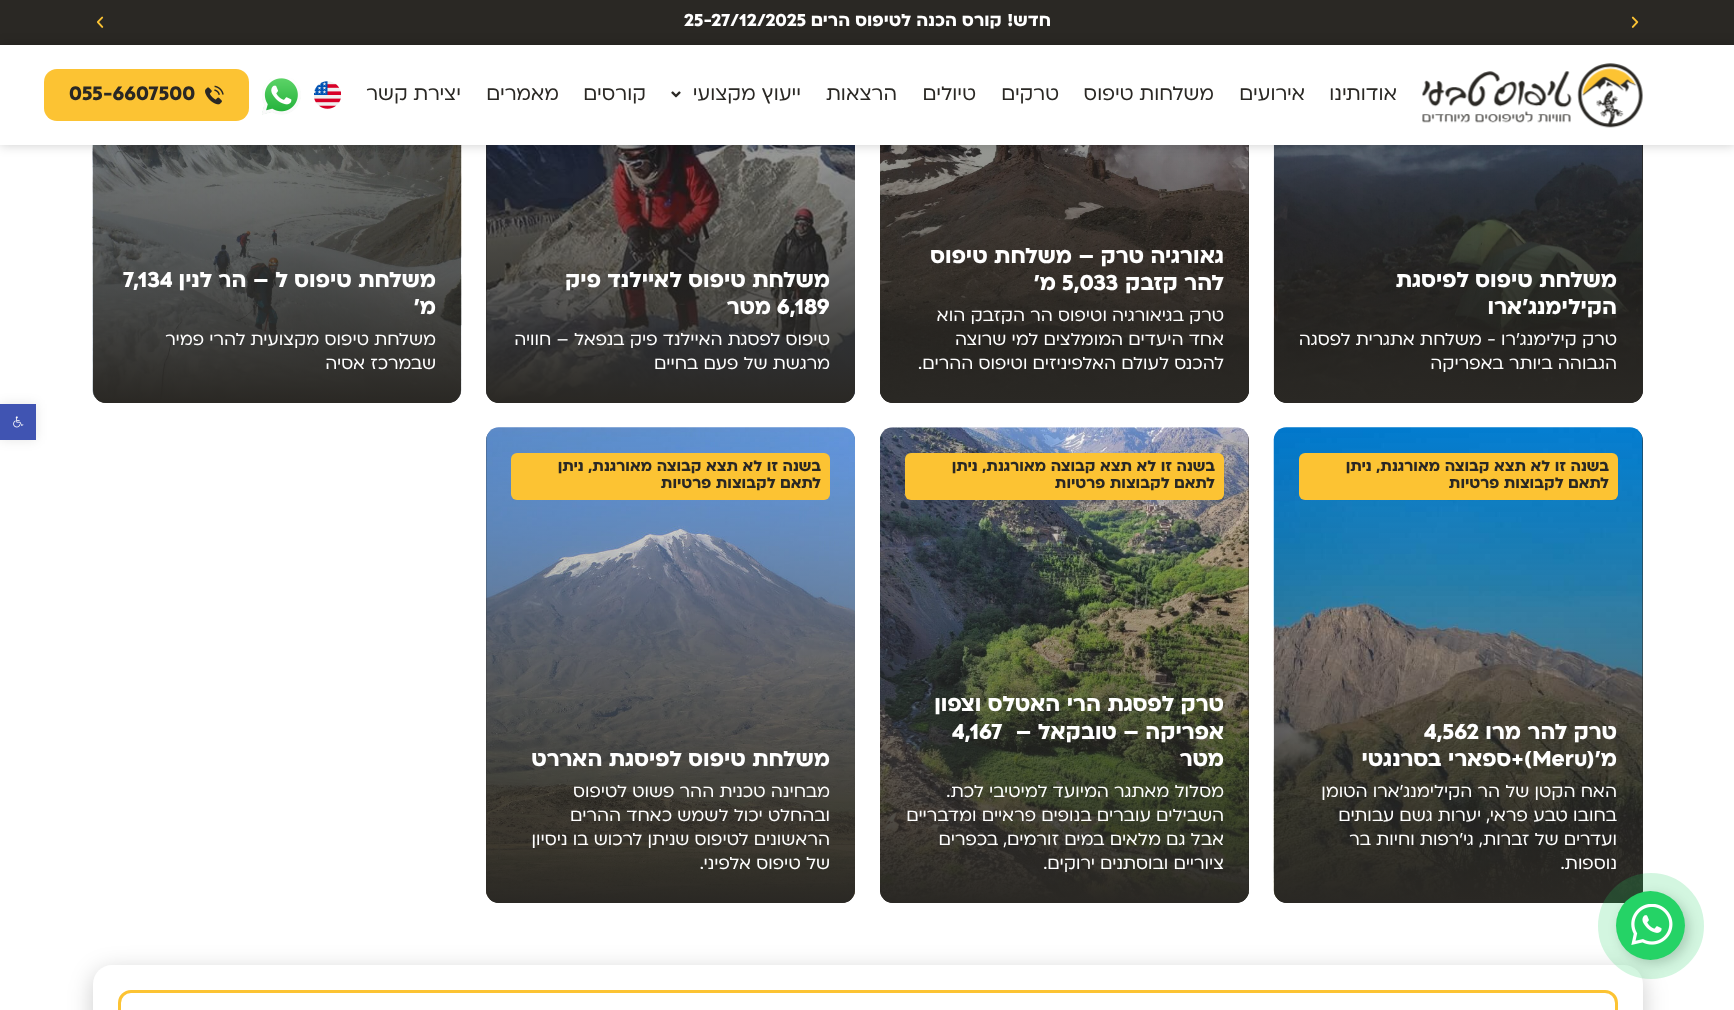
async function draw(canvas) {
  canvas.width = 1734
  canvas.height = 1010
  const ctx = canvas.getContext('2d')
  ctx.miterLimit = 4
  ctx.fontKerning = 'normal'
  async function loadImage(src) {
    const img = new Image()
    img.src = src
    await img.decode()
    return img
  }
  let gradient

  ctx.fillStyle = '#fff'
  ctx.fillRect(0, 0, 1734, 1010)
  ctx.fillStyle = '#2a2824'
  ctx.beginPath()
  ctx.roundRect(1274, -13, 369, 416, 13)
  ctx.fill()
  ctx.drawImage(await loadImage('image7.png'), 1273, 145, 370, 257)
  gradient = ctx.createLinearGradient(1458, -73, 1458, 403)
  gradient.addColorStop(0, '#2a282400')
  gradient.addColorStop(1, '#2a2824')
  ctx.fillStyle = gradient
  ctx.beginPath()
  ctx.roundRect(1274, -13, 369, 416, 13)
  ctx.fill()
  ctx.fillStyle = '#2a2824'
  ctx.beginPath()
  ctx.roundRect(880, -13, 369, 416, 13)
  ctx.fill()
  ctx.drawImage(await loadImage('image8.png'), 880, 145, 369, 258)
  gradient = ctx.createLinearGradient(1064, -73, 1064, 403)
  gradient.addColorStop(0, '#2a282400')
  gradient.addColorStop(1, '#2a2824')
  ctx.fillStyle = gradient
  ctx.beginPath()
  ctx.roundRect(880, -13, 369, 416, 13)
  ctx.fill()
  ctx.fillStyle = '#2a2824'
  ctx.beginPath()
  ctx.roundRect(486, -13, 369, 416, 13)
  ctx.fill()
  ctx.drawImage(await loadImage('image9.png'), 486, 145, 369, 258)
  gradient = ctx.createLinearGradient(671, -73, 671, 403)
  gradient.addColorStop(0, '#2a282400')
  gradient.addColorStop(1, '#2a2824')
  ctx.fillStyle = gradient
  ctx.beginPath()
  ctx.roundRect(486, -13, 369, 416, 13)
  ctx.fill()
  ctx.fillStyle = '#2a2824'
  ctx.beginPath()
  ctx.roundRect(93, -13, 368, 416, 13)
  ctx.fill()
  ctx.drawImage(await loadImage('image10.png'), 92, 145, 370, 258)
  gradient = ctx.createLinearGradient(277, -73, 277, 403)
  gradient.addColorStop(0, '#2a282400')
  gradient.addColorStop(1, '#2a2824')
  ctx.fillStyle = gradient
  ctx.beginPath()
  ctx.roundRect(93, -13, 368, 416, 13)
  ctx.fill()
  ctx.fillStyle = '#2a2824'
  ctx.fillRect(0, 0, 1734, 45)
  ctx.drawImage(await loadImage('image0.png'), 1631, 16, 8, 12)
  ctx.direction = 'rtl'
  ctx.font = 'bold 20px "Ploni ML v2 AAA"'
  ctx.fillStyle = '#fff'
  ctx.fillText('חדש! קורס הכנה לטיפוס הרים', 1051, 26)
  ctx.direction = 'ltr'
  ctx.fillText('25-27/12/2025', 684, 26)
  ctx.drawImage(await loadImage('image1.png'), 96, 16, 8, 12)
  ctx.fillStyle = '#00000033'
  ctx.filter = 'blur(6px)'
  ctx.beginPath()
  ctx.rect(0, 45, 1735, 100)
  ctx.fill()
  ctx.filter = 'none'
  ctx.fillStyle = '#fff'
  ctx.fillRect(0, 45, 1734, 100)
  ctx.drawImage(await loadImage('image2.png'), 1422, 63, 221, 65)
  ctx.direction = 'rtl'
  ctx.font = '22.5px "Ploni ML v2 AAA"'
  ctx.fillStyle = '#2a2824'
  ctx.fillText('אודותינו', 1397, 100)
  ctx.fillText('אירועים', 1305, 100)
  ctx.fillText('משלחות טיפוס', 1214, 100)
  ctx.fillText('טרקים', 1059, 100)
  ctx.fillText('טיולים', 976, 100)
  ctx.fillText('הרצאות', 897, 100)
  ctx.fillText('ייעוץ מקצועי', 801, 100)
  ctx.drawImage(await loadImage('image3.png'), 671, 91, 10, 7)
  ctx.fillText('קורסים', 646, 100)
  ctx.fillText('מאמרים', 559, 100)
  ctx.fillText('יצירת קשר', 461, 100)
  ctx.drawImage(await loadImage('image4.png'), 314, 81, 27, 28)
  ctx.drawImage(await loadImage('image5.png'), 262, 78, 39, 37)
  ctx.fillStyle = '#fcc333'
  ctx.beginPath()
  ctx.roundRect(44, 69, 205, 52, 13)
  ctx.fill()
  ctx.drawImage(await loadImage('image6.png'), 205, 85, 19, 20)
  ctx.direction = 'ltr'
  ctx.font = 'bold 22.5px "Ploni ML v2 AAA"'
  ctx.fillStyle = '#2a2824'
  ctx.fillText('055-6607500', 69, 100)
  ctx.direction = 'rtl'
  ctx.font = 'bold 25px "Ploni ML v2 AAA"'
  ctx.fillStyle = '#fff'
  ctx.fillText('משלחת טיפוס לפיסגת', 1617, 287)
  ctx.fillText('הקילימנג\'ארו', 1617, 314)
  ctx.font = '20px "Ploni ML v2 AAA"'
  ctx.fillText('טרק קילימנג\'רו - משלחת אתגרית לפסגה', 1617, 345)
  ctx.fillText('הגבוהה ביותר באפריקה', 1617, 369)
  ctx.font = 'bold 25px "Ploni ML v2 AAA"'
  ctx.fillText('גאורגיה טרק – משלחת טיפוס', 1224, 263)
  ctx.fillText('להר קזבק', 1224, 290)
  ctx.direction = 'ltr'
  ctx.fillText('5,033', 1062, 290)
  ctx.direction = 'rtl'
  ctx.fillText('מ\'', 1056, 290)
  ctx.font = '20px "Ploni ML v2 AAA"'
  ctx.fillText('טרק בגיאורגיה וטיפוס הר הקזבק הוא', 1224, 321)
  ctx.fillText('אחד היעדים המומלצים למי שרוצה', 1224, 345)
  ctx.fillText('להכנס לעולם האלפיניזים וטיפוס ההרים.', 1224, 369)
  ctx.font = 'bold 25px "Ploni ML v2 AAA"'
  ctx.fillText('משלחת טיפוס לאיילנד פיק', 830, 287)
  ctx.direction = 'ltr'
  ctx.fillText('6,189', 777, 314)
  ctx.direction = 'rtl'
  ctx.fillText('מטר', 771, 314)
  ctx.font = '20px "Ploni ML v2 AAA"'
  ctx.fillText('טיפוס לפסגת האיילנד פיק בנפאל – חוויה', 830, 345)
  ctx.fillText('מרגשת של פעם בחיים', 830, 369)
  ctx.font = 'bold 25px "Ploni ML v2 AAA"'
  ctx.fillText('משלחת טיפוס ל – הר לנין', 436, 287)
  ctx.direction = 'ltr'
  ctx.fillText('7,134', 123, 287)
  ctx.direction = 'rtl'
  ctx.fillText('מ\'', 436, 314)
  ctx.font = '20px "Ploni ML v2 AAA"'
  ctx.fillText('משלחת טיפוס מקצועית להרי פמיר', 436, 345)
  ctx.fillText('שבמרכז אסיה', 436, 369)
  ctx.fillStyle = '#2a2824'
  ctx.beginPath()
  ctx.roundRect(1274, 428, 369, 475, 13)
  ctx.fill()
  ctx.drawImage(await loadImage('image11.png'), 1273, 427, 370, 476)
  gradient = ctx.createLinearGradient(1458, 428, 1458, 903)
  gradient.addColorStop(0, '#2a282400')
  gradient.addColorStop(1, '#2a2824')
  ctx.fillStyle = gradient
  ctx.beginPath()
  ctx.roundRect(1274, 428, 369, 475, 13)
  ctx.fill()
  ctx.fillStyle = '#fcc333'
  ctx.beginPath()
  ctx.roundRect(1299, 453, 319, 47, 6)
  ctx.fill()
  ctx.font = 'bold 17.5px "Ploni ML v2 AAA"'
  ctx.fillStyle = '#2a2824'
  ctx.fillText('בשנה זו לא תצא קבוצה מאורגנת, ניתן', 1609, 471)
  ctx.fillText('לתאם לקבוצות פרטיות', 1609, 488)
  ctx.font = 'bold 25px "Ploni ML v2 AAA"'
  ctx.fillStyle = '#fff'
  ctx.fillText('טרק להר מרו', 1617, 739)
  ctx.direction = 'ltr'
  ctx.fillText('4,562', 1424, 739)
  ctx.direction = 'rtl'
  ctx.fillText('מ\'(', 1617, 766)
  ctx.direction = 'ltr'
  ctx.fillText('Meru', 1532, 766)
  ctx.direction = 'rtl'
  ctx.fillText(')+ספארי בסרנגטי', 1532, 766)
  ctx.font = '20px "Ploni ML v2 AAA"'
  ctx.fillText('האח הקטן של הר הקילימנג\'ארו הטומן', 1617, 797)
  ctx.fillText('בחובו טבע פראי, יערות גשם עבותים', 1617, 821)
  ctx.fillText('ועדרים של זברות, גי\'רפות וחיות בר', 1617, 845)
  ctx.fillText('נוספות.', 1617, 869)
  ctx.fillStyle = '#2a2824'
  ctx.beginPath()
  ctx.roundRect(880, 428, 369, 475, 13)
  ctx.fill()
  ctx.drawImage(await loadImage('image12.png'), 880, 427, 369, 476)
  gradient = ctx.createLinearGradient(1064, 428, 1064, 903)
  gradient.addColorStop(0, '#2a282400')
  gradient.addColorStop(1, '#2a2824')
  ctx.fillStyle = gradient
  ctx.beginPath()
  ctx.roundRect(880, 428, 369, 475, 13)
  ctx.fill()
  ctx.fillStyle = '#fcc333'
  ctx.beginPath()
  ctx.roundRect(905, 453, 319, 47, 6)
  ctx.fill()
  ctx.font = 'bold 17.5px "Ploni ML v2 AAA"'
  ctx.fillStyle = '#2a2824'
  ctx.fillText('בשנה זו לא תצא קבוצה מאורגנת, ניתן', 1215, 471)
  ctx.fillText('לתאם לקבוצות פרטיות', 1215, 488)
  ctx.font = 'bold 25px "Ploni ML v2 AAA"'
  ctx.fillStyle = '#fff'
  ctx.fillText('טרק לפסגת הרי האטלס וצפון', 1224, 711)
  ctx.fillText('אפריקה – טובקאל –', 1224, 739)
  ctx.direction = 'ltr'
  ctx.fillText('4,167', 952, 739)
  ctx.direction = 'rtl'
  ctx.fillText('מטר', 1224, 766)
  ctx.font = '20px "Ploni ML v2 AAA"'
  ctx.fillText('מסלול מאתגר המיועד למיטיבי לכת.', 1224, 797)
  ctx.fillText('השבילים עוברים בנופים פראיים ומדבריים', 1224, 821)
  ctx.fillText('אבל גם מלאים במים זורמים, בכפרים', 1224, 845)
  ctx.fillText('ציוריים ובוסתנים ירוקים.', 1224, 869)
  ctx.fillStyle = '#2a2824'
  ctx.beginPath()
  ctx.roundRect(486, 428, 369, 475, 13)
  ctx.fill()
  ctx.drawImage(await loadImage('image13.png'), 486, 427, 369, 476)
  gradient = ctx.createLinearGradient(671, 428, 671, 903)
  gradient.addColorStop(0, '#2a282400')
  gradient.addColorStop(1, '#2a2824')
  ctx.fillStyle = gradient
  ctx.beginPath()
  ctx.roundRect(486, 428, 369, 475, 13)
  ctx.fill()
  ctx.fillStyle = '#fcc333'
  ctx.beginPath()
  ctx.roundRect(511, 453, 319, 47, 6)
  ctx.fill()
  ctx.font = 'bold 17.5px "Ploni ML v2 AAA"'
  ctx.fillStyle = '#2a2824'
  ctx.fillText('בשנה זו לא תצא קבוצה מאורגנת, ניתן', 821, 471)
  ctx.fillText('לתאם לקבוצות פרטיות', 821, 488)
  ctx.font = 'bold 25px "Ploni ML v2 AAA"'
  ctx.fillStyle = '#fff'
  ctx.fillText('משלחת טיפוס לפיסגת האררט', 830, 766)
  ctx.font = '20px "Ploni ML v2 AAA"'
  ctx.fillText('מבחינה טכנית ההר פשוט לטיפוס', 830, 797)
  ctx.fillText('ובהחלט יכול לשמש כאחד ההרים', 830, 821)
  ctx.fillText('הראשונים לטיפוס שניתן לרכוש בו ניסיון', 830, 845)
  ctx.fillText('של טיפוס אלפיני.', 830, 869)
  ctx.fillStyle = '#0000001a'
  ctx.filter = 'blur(6px)'
  ctx.beginPath()
  ctx.rect(0, 404, 36, 36)
  ctx.fill()
  ctx.filter = 'none'
  ctx.fillStyle = '#4054b2'
  ctx.fillRect(0, 404, 36, 36)
  ctx.drawImage(await loadImage('image14.png'), 13, 416, 11, 12)
  ctx.fillStyle = '#00000033'
  ctx.filter = 'blur(12.5px)'
  ctx.beginPath()
  ctx.roundRect(93, 971, 1550, 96, 19)
  ctx.fill()
  ctx.filter = 'none'
  ctx.fillStyle = '#fff'
  ctx.beginPath()
  ctx.roundRect(93, 965, 1550, 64, 19)
  ctx.fill()
  ctx.fillStyle = '#00000033'
  ctx.filter = 'blur(6px)'
  ctx.beginPath()
  ctx.roundRect(1620, 895, 69, 69, 34.5)
  ctx.fill()
  ctx.filter = 'none'
  ctx.fillStyle = '#25d366'
  ctx.beginPath()
  ctx.arc(1650.5, 925.5, 34.5, 0, 2 * Math.PI)
  ctx.fill()
  ctx.drawImage(await loadImage('image15.png'), 1631, 904, 42, 41)
  ctx.beginPath()
  ctx.arc(1651, 926, 43.5, 0, 2 * Math.PI)
  ctx.strokeStyle = '#25d36633'
  ctx.lineWidth = 19
  ctx.stroke()
  ctx.beginPath()
  ctx.roundRect(119.5, 991.5, 1497, 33, 11.5)
  ctx.strokeStyle = '#fcc333'
  ctx.lineWidth = 3
  ctx.stroke()
}

draw(document.querySelector('canvas'))
